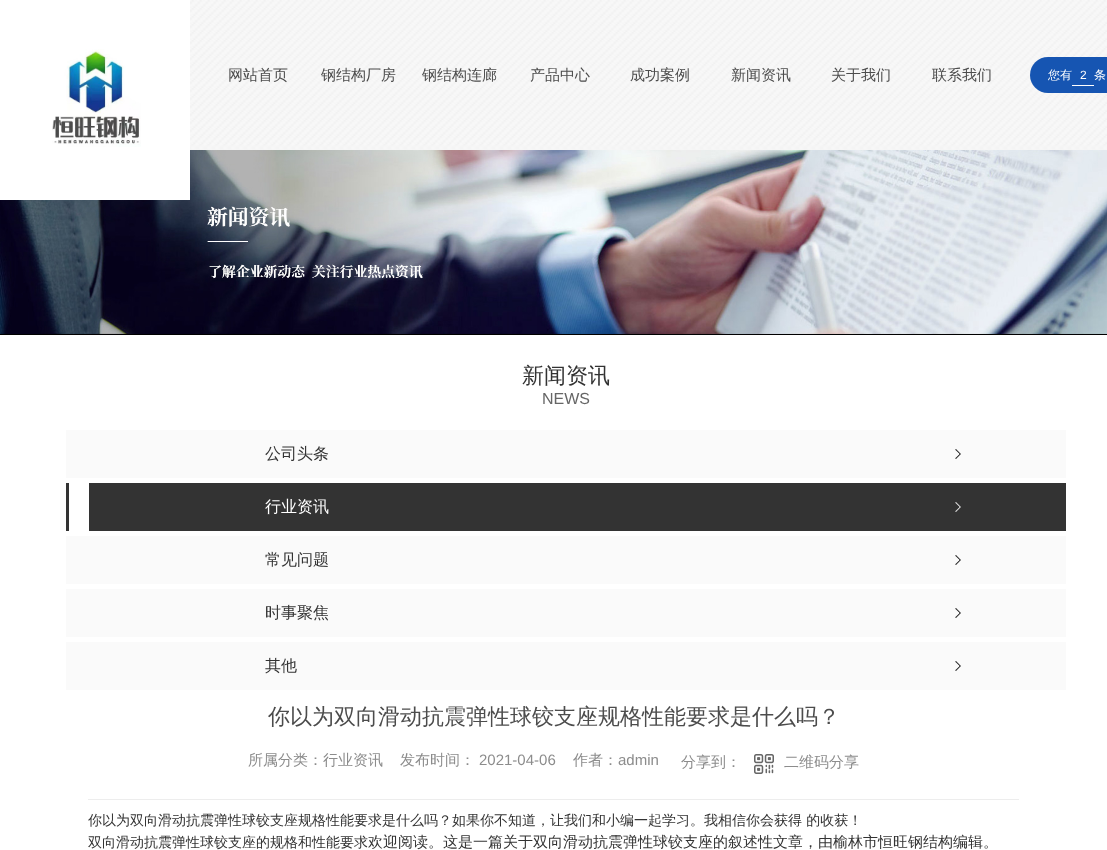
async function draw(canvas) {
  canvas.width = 1107
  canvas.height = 850
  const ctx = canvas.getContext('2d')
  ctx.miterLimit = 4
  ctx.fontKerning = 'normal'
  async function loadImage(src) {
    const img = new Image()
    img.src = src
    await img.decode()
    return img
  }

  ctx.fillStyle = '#fff'
  ctx.fillRect(0, 0, 1107, 850)
  ctx.drawImage(await loadImage('image0.png'), 190, 0, 917, 150)
  ctx.drawImage(await loadImage('image1.png'), 52, 49, 89, 98)
  ctx.drawImage(await loadImage('image2.png'), 0, 150, 1107, 185)
  ctx.fillRect(0, 150, 190, 50)
  ctx.font = '500 15px WenQuanYi Zen Hei'
  ctx.fillStyle = '#4c4c4c'
  ctx.fillText('网站首页', 228, 80)
  ctx.fillText('钢结构厂房', 321, 80)
  ctx.fillText('钢结构连廊', 422, 80)
  ctx.fillText('产品中心', 530, 80)
  ctx.fillText('成功案例', 630, 80)
  ctx.fillText('新闻资讯', 731, 80)
  ctx.fillText('关于我们', 831, 80)
  ctx.fillText('联系我们', 932, 80)
  ctx.fillStyle = '#1655b2'
  ctx.beginPath()
  ctx.roundRect(1030, 57, 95, 36, 18)
  ctx.fill()
  ctx.font = '500 12px WenQuanYi Zen Hei'
  ctx.fillStyle = '#fff'
  ctx.fillText('您有', 1048, 79)
  ctx.fillRect(1072, 85, 22, 1)
  ctx.font = '12px Liberation Sans'
  ctx.fillText('2', 1080, 79)
  ctx.font = '500 12px WenQuanYi Zen Hei'
  ctx.fillText('条', 1094, 79)
  ctx.font = '500 22px WenQuanYi Zen Hei'
  ctx.fillStyle = '#333'
  ctx.fillText('新闻资讯', 522, 383)
  ctx.font = '16px Liberation Sans'
  ctx.fillStyle = '#666'
  ctx.fillText('NEWS', 542, 404)
  ctx.fillStyle = '#fafafa'
  ctx.fillRect(66, 430, 1000, 48)
  ctx.drawImage(await loadImage('image3.png'), 955, 449, 6, 10)
  ctx.font = '500 16px WenQuanYi Zen Hei'
  ctx.fillStyle = '#333'
  ctx.fillText('公司头条', 265, 459)
  ctx.fillRect(66, 483, 1000, 48)
  ctx.fillStyle = '#fff'
  ctx.fillRect(69, 483, 20, 48)
  ctx.drawImage(await loadImage('image4.png'), 955, 502, 6, 10)
  ctx.fillText('行业资讯', 265, 512)
  ctx.fillStyle = '#fafafa'
  ctx.fillRect(66, 536, 1000, 48)
  ctx.drawImage(await loadImage('image3.png'), 955, 555, 6, 10)
  ctx.fillStyle = '#333'
  ctx.fillText('常见问题', 265, 565)
  ctx.fillStyle = '#fafafa'
  ctx.fillRect(66, 589, 1000, 48)
  ctx.drawImage(await loadImage('image3.png'), 955, 608, 6, 10)
  ctx.fillStyle = '#333'
  ctx.fillText('时事聚焦', 265, 618)
  ctx.fillStyle = '#fafafa'
  ctx.fillRect(66, 642, 1000, 48)
  ctx.drawImage(await loadImage('image3.png'), 955, 661, 6, 10)
  ctx.fillStyle = '#333'
  ctx.fillText('其他', 265, 671)
  ctx.font = '500 22px WenQuanYi Zen Hei'
  ctx.fillStyle = '#4c4c4c'
  ctx.fillText('你以为双向滑动抗震弹性球铰支座规格性能要求是什么吗？', 268, 724)
  ctx.font = '500 15px WenQuanYi Zen Hei'
  ctx.fillStyle = '#8c8c8c'
  ctx.fillText('所属分类：行业资讯', 248, 765)
  ctx.fillText('发布时间：', 400, 765)
  ctx.font = '15px Liberation Sans'
  ctx.fillText('2021-04-06', 479, 765)
  ctx.font = '500 15px WenQuanYi Zen Hei'
  ctx.fillText('作者：', 573, 765)
  ctx.font = '15px Liberation Sans'
  ctx.fillText('admin', 618, 765)
  ctx.font = '500 15px WenQuanYi Zen Hei'
  ctx.fillText('分享到：', 681, 767)
  ctx.drawImage(await loadImage('image5.png'), 754, 754, 20, 20)
  ctx.fillText('二维码分享', 784, 767)
  ctx.fillStyle = '#ededed'
  ctx.fillRect(88, 799, 931, 1)
  ctx.font = '500 14px WenQuanYi Zen Hei'
  ctx.fillStyle = '#333'
  ctx.fillText('你以为双向滑动抗震弹性球铰支座规格性能要求是什么吗？如果你不知道，让我们和小编一起学习。我相信你会获得 的收获！', 88, 825)
  ctx.fillText('双向滑动抗震弹性球铰支座的规格和性能要求', 88, 847)
  ctx.font = '500 15px WenQuanYi Zen Hei'
  ctx.fillText('欢迎阅读。这是一篇关于双向滑动抗震弹性球铰支座的叙述性文章，由榆林市恒旺钢结构编辑。', 368, 847)
}

draw(document.querySelector('canvas'))
